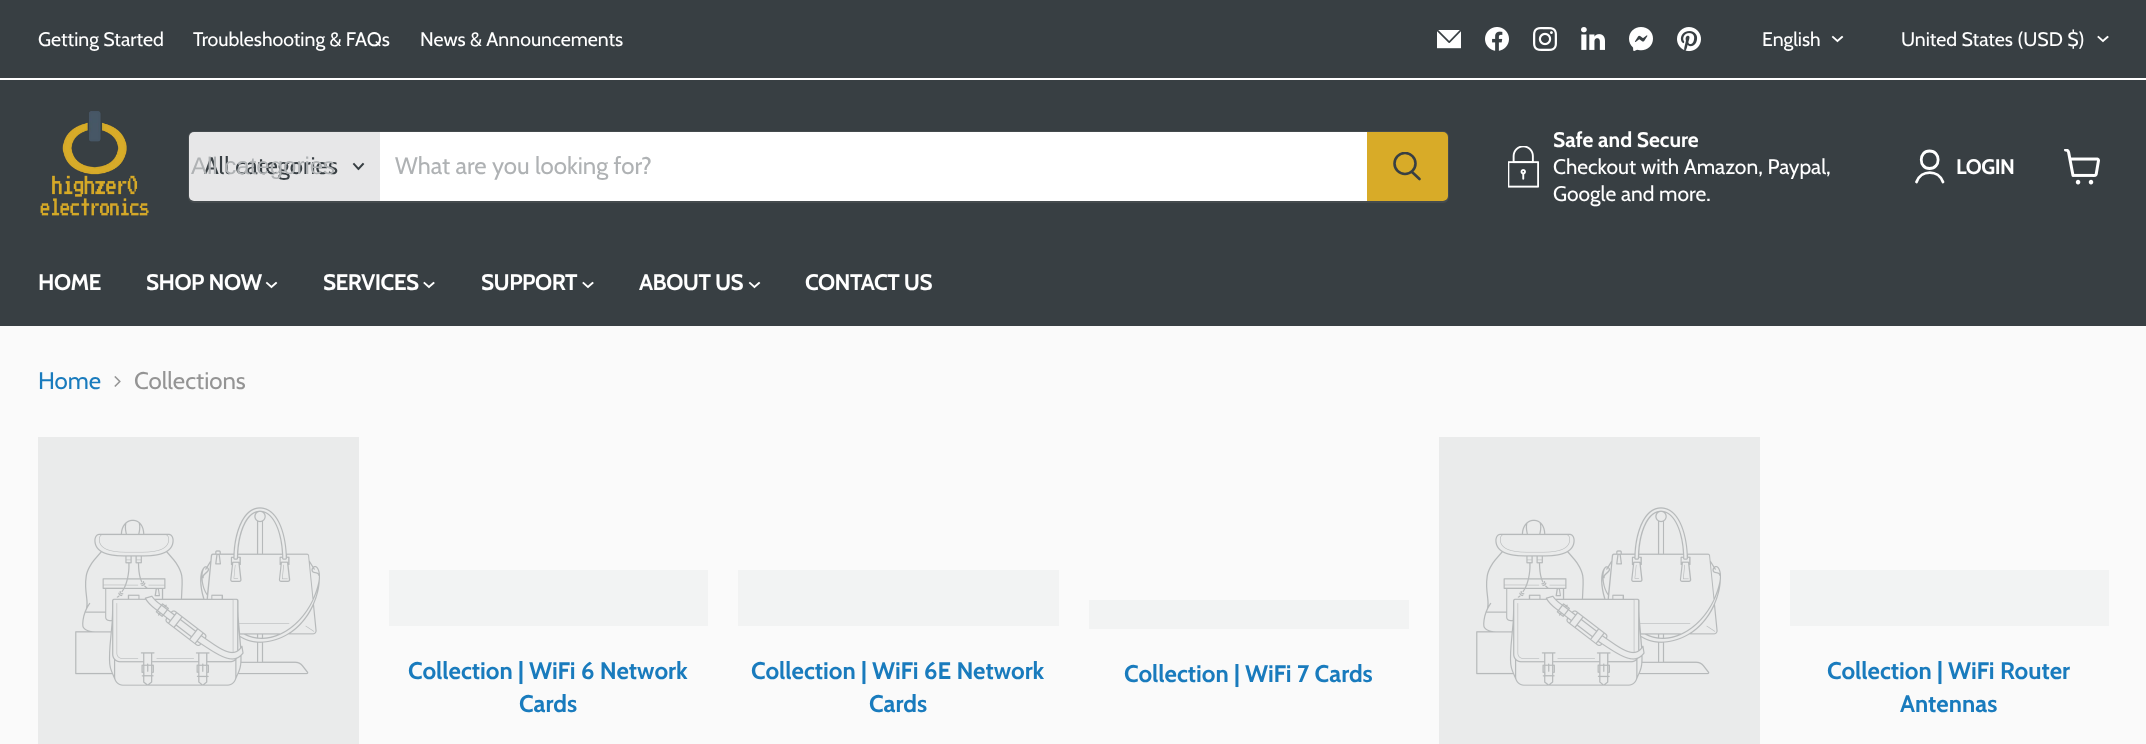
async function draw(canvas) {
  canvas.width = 2146
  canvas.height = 744
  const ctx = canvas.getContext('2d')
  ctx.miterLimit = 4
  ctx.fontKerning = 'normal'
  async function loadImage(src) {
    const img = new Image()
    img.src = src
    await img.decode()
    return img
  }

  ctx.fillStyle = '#fafafa'
  ctx.fillRect(0, 0, 2146, 744)
  ctx.fillStyle = '#383f43'
  ctx.fillRect(0, 0, 2146, 78)
  ctx.fillStyle = '#fff'
  ctx.fillRect(0, 78, 2146, 2)
  ctx.font = '19.5px Cabin'
  ctx.fillText('Getting Started', 38, 46)
  ctx.fillText('Troubleshooting & FAQs', 193, 46)
  ctx.fillText('News & Announcements', 420, 46)
  ctx.drawImage(await loadImage('image0.png'), 1437, 30, 24, 19)
  ctx.drawImage(await loadImage('image1.png'), 1485, 27, 24, 24)
  ctx.drawImage(await loadImage('image2.png'), 1533, 27, 24, 24)
  ctx.drawImage(await loadImage('image3.png'), 1581, 27, 24, 23)
  ctx.drawImage(await loadImage('image4.png'), 1629, 27, 24, 24)
  ctx.drawImage(await loadImage('image5.png'), 1677, 27, 24, 25)
  ctx.fillText('English', 1762, 46)
  ctx.beginPath()
  ctx.moveTo(1837.5, 41)
  ctx.lineTo(1842, 37)
  ctx.moveTo(1837.5, 41)
  ctx.lineTo(1833, 37)
  ctx.strokeStyle = '#fff'
  ctx.lineWidth = 1.9
  ctx.lineCap = 'square'
  ctx.stroke()
  ctx.fillText('United States (USD $)', 1901, 46)
  ctx.beginPath()
  ctx.moveTo(2103, 41)
  ctx.lineTo(2107.5, 37)
  ctx.moveTo(2103, 41)
  ctx.lineTo(2098.5, 37)
  ctx.stroke()
  ctx.fillStyle = '#383f43'
  ctx.fillRect(0, 80, 2146, 246)
  ctx.drawImage(await loadImage('image6.png'), 40, 111, 109, 105)
  ctx.beginPath()
  ctx.roundRect(189, 132, 1259, 70, 5)
  ctx.strokeStyle = '#7d7d7d33'
  ctx.lineWidth = 2
  ctx.stroke()
  ctx.fillStyle = '#e7e7e8'
  ctx.beginPath()
  ctx.roundRect(189, 132, 191, 69, [5, 0, 0, 5])
  ctx.fill()
  ctx.font = '24px Cabin'
  ctx.fillStyle = '#383f43'
  ctx.fillText('All categories', 204, 174)
  ctx.font = '24px Liberation Sans'
  ctx.fillStyle = '#afb2b4'
  ctx.fillText('All categories', 191, 174)
  ctx.beginPath()
  ctx.moveTo(358.5, 169)
  ctx.lineTo(363, 164)
  ctx.moveTo(358.5, 169)
  ctx.lineTo(354, 164)
  ctx.strokeStyle = '#383f43'
  ctx.lineWidth = 1.9
  ctx.stroke()
  ctx.fillStyle = '#fff'
  ctx.fillRect(380, 132, 987, 69)
  ctx.font = '24px Cabin'
  ctx.fillStyle = '#afb2b4'
  ctx.fillText('What are you looking for?', 395, 174)
  ctx.fillStyle = '#d8ab28'
  ctx.beginPath()
  ctx.roundRect(1368, 133, 79, 67, [0, 4, 4, 0])
  ctx.fill()
  ctx.strokeStyle = '#d8ab28'
  ctx.lineWidth = 2
  ctx.stroke()
  ctx.beginPath()
  ctx.moveTo(1419.5, 179)
  ctx.lineTo(1412, 172)
  ctx.strokeStyle = '#383f43'
  ctx.lineWidth = 2.6
  ctx.lineCap = 'round'
  ctx.stroke()
  ctx.save()
  ctx.beginPath()
  ctx.rect(1392, 152, 30, 31)
  ctx.clip()
  ctx.beginPath()
  ctx.arc(1405, 163.5, 10.5, 0, 2 * Math.PI)
  ctx.stroke()
  ctx.restore()
  ctx.drawImage(await loadImage('image7.png'), 1508, 146, 31, 42)
  ctx.font = 'bold 21px Cabin'
  ctx.fillStyle = '#fff'
  ctx.fillText('Safe and Secure', 1553, 147)
  ctx.font = '21px Cabin'
  ctx.fillText('Checkout with Amazon, Paypal,', 1553, 174)
  ctx.fillText('Google and more.', 1553, 201)
  ctx.beginPath()
  ctx.moveTo(1929.5, 168.5)
  ctx.bezierCurveTo(1941, 168.5, 1941, 151, 1929.5, 151)
  ctx.bezierCurveTo(1918.5, 151, 1918.5, 168.5, 1929.5, 168.5)
  ctx.closePath()
  ctx.moveTo(1943, 182)
  ctx.bezierCurveTo(1938.5, 169.5, 1921, 169.5, 1916.5, 182)
  ctx.strokeStyle = '#fff'
  ctx.lineWidth = 2.8
  ctx.lineJoin = 'round'
  ctx.stroke()
  ctx.letterSpacing = '-0.5px'
  ctx.font = 'bold 21px Cabin'
  ctx.fillText('LOGIN', 1956, 174)
  ctx.drawImage(await loadImage('image8.png'), 2064, 149, 36, 36)
  ctx.font = 'bold 22.5px Cabin'
  ctx.fillText('HOME', 38, 290)
  ctx.fillText('SHOP NOW', 146, 290)
  ctx.beginPath()
  ctx.moveTo(271.5, 287)
  ctx.lineTo(276, 283)
  ctx.moveTo(271.5, 287)
  ctx.lineTo(267, 283)
  ctx.lineWidth = 1.9
  ctx.lineCap = 'square'
  ctx.lineJoin = 'miter'
  ctx.stroke()
  ctx.fillText('SERVICES', 323, 290)
  ctx.beginPath()
  ctx.moveTo(429, 287)
  ctx.lineTo(433.5, 283)
  ctx.moveTo(429, 287)
  ctx.lineTo(424.5, 283)
  ctx.stroke()
  ctx.fillText('SUPPORT', 481, 290)
  ctx.beginPath()
  ctx.moveTo(588, 287)
  ctx.lineTo(592.5, 283)
  ctx.moveTo(588, 287)
  ctx.lineTo(583.5, 283)
  ctx.stroke()
  ctx.fillText('ABOUT US', 639, 290)
  ctx.beginPath()
  ctx.moveTo(754.5, 287)
  ctx.lineTo(759, 283)
  ctx.moveTo(754.5, 287)
  ctx.lineTo(750, 283)
  ctx.stroke()
  ctx.fillText('CONTACT US', 805, 290)
  ctx.letterSpacing = '0px'
  ctx.font = '24px Cabin'
  ctx.fillStyle = '#197bbd'
  ctx.fillText('Home', 38, 389)
  ctx.drawImage(await loadImage('image9.png'), 114, 376, 7, 11)
  ctx.fillStyle = '#949494'
  ctx.fillText('Collections', 134, 389)
  ctx.fillStyle = '#eaebeb'
  ctx.fillRect(38, 437, 321, 307)
  ctx.drawImage(await loadImage('image10.png'), 75, 507, 245, 179)
  ctx.fillStyle = '#f2f3f3'
  ctx.fillRect(389, 570, 319, 56)
  ctx.font = 'bold 24px Cabin'
  ctx.fillStyle = '#197bbd'
  ctx.fillText('Collection | WiFi 6 Network', 408, 679)
  ctx.fillText('Cards', 519, 712)
  ctx.fillStyle = '#f2f3f3'
  ctx.fillRect(738, 570, 321, 56)
  ctx.fillStyle = '#197bbd'
  ctx.fillText('Collection | WiFi 6E Network', 751, 679)
  ctx.fillText('Cards', 869, 712)
  ctx.fillStyle = '#f2f3f3'
  ctx.fillRect(1089, 600, 320, 29)
  ctx.fillStyle = '#197bbd'
  ctx.fillText('Collection | WiFi 7 Cards', 1124, 682)
  ctx.fillStyle = '#eaebeb'
  ctx.fillRect(1439, 437, 321, 307)
  ctx.drawImage(await loadImage('image10.png'), 1476, 507, 245, 179)
  ctx.fillStyle = '#f2f3f3'
  ctx.fillRect(1790, 570, 319, 56)
  ctx.fillStyle = '#197bbd'
  ctx.fillText('Collection | WiFi Router', 1827, 679)
  ctx.fillText('Antennas', 1900, 712)
}

draw(document.querySelector('canvas'))
